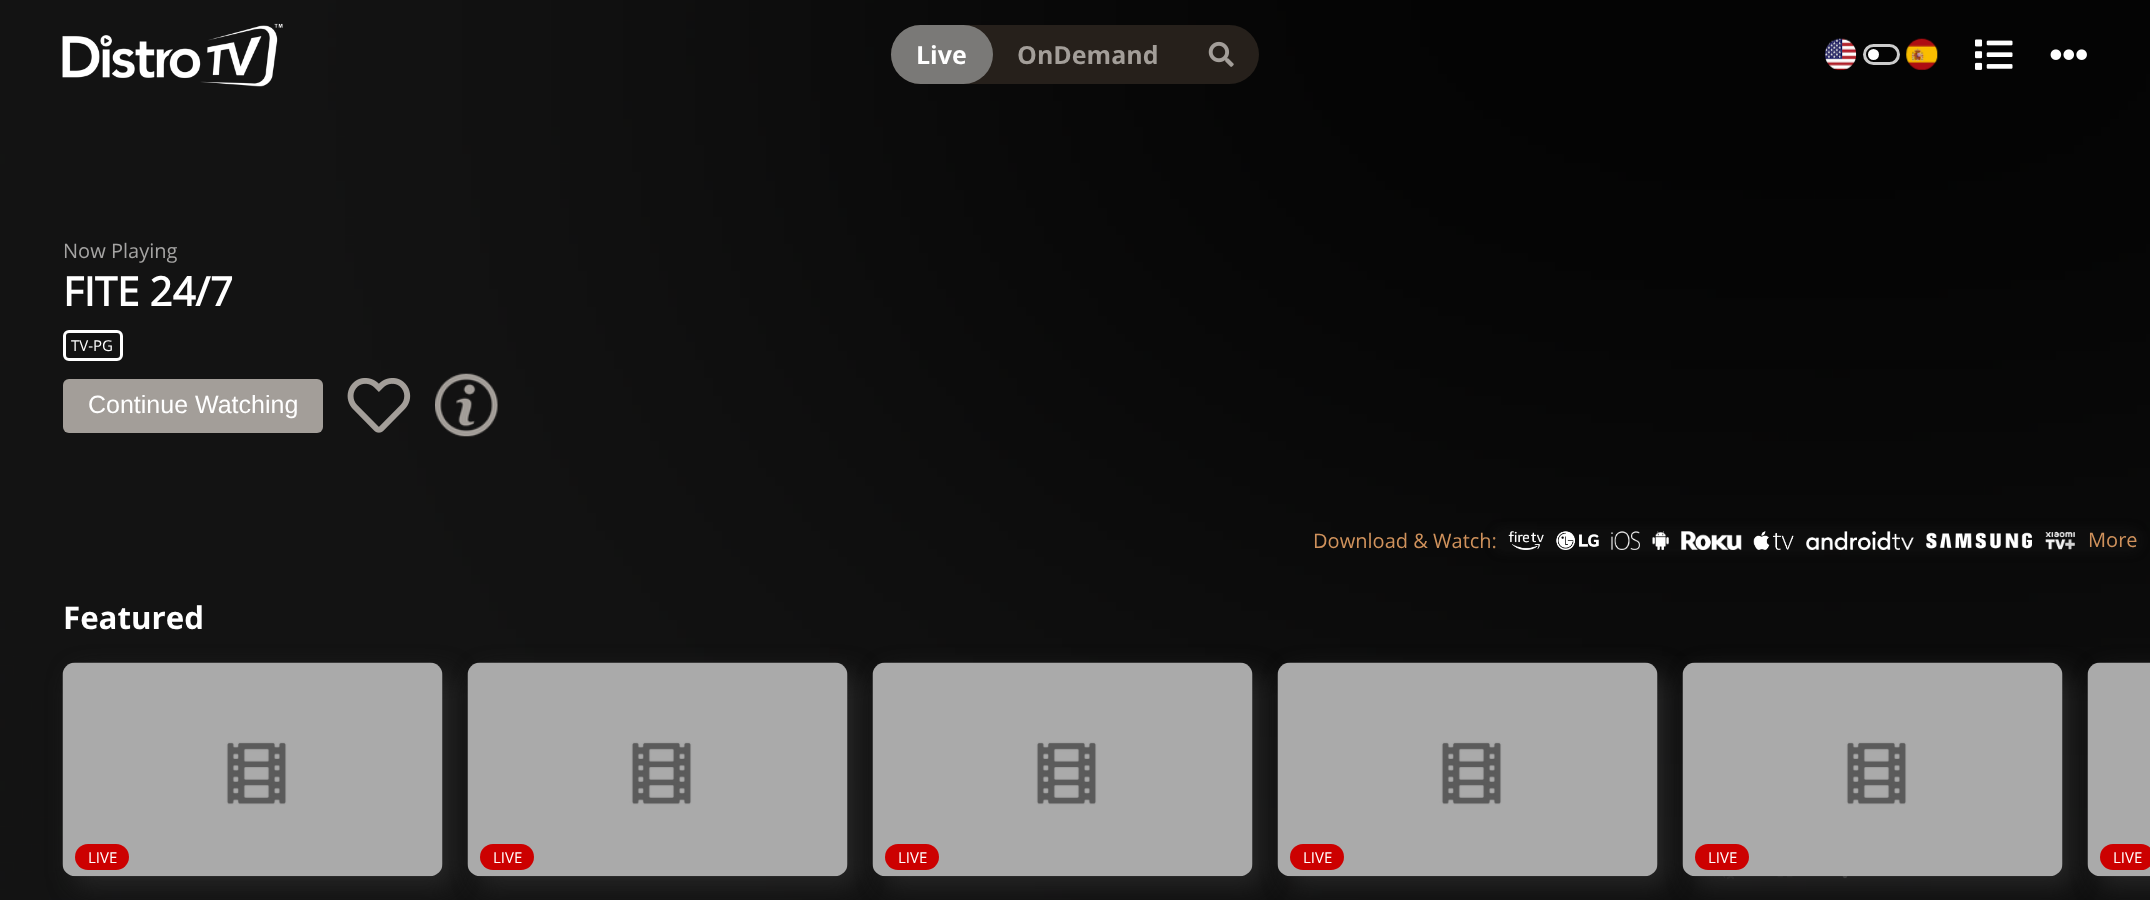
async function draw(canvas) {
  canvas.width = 2150
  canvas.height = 900
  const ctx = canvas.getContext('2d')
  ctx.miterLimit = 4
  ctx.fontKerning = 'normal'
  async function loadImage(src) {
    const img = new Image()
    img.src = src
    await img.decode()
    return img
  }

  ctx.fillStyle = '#000'
  ctx.fillRect(0, 0, 2150, 900)
  ctx.drawImage(await loadImage('image24.png'), 1715, 876, 133, 4)
  ctx.drawImage(await loadImage('image0.png'), 0, 0, 2150, 900)
  ctx.drawImage(await loadImage('image1.png'), 62, 23, 221, 64)
  ctx.fillStyle = '#26201b'
  ctx.beginPath()
  ctx.roundRect(891, 25, 368, 59, 29.5)
  ctx.fill()
  ctx.fillStyle = '#7a7977'
  ctx.beginPath()
  ctx.roundRect(891, 25, 102, 59, 29.5)
  ctx.fill()
  ctx.font = 'bold 25px "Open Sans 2"'
  ctx.fillStyle = '#fff'
  ctx.fillText('Live', 916, 64)
  ctx.fillStyle = '#a39e99'
  ctx.fillText('OnDemand', 1017, 64)
  ctx.drawImage(await loadImage('image2.png'), 1208, 41, 26, 26)
  ctx.drawImage(await loadImage('image3.png'), 1825, 38, 32, 33)
  ctx.beginPath()
  ctx.roundRect(1864.5, 45.5, 34, 18, 9)
  ctx.strokeStyle = '#ccc'
  ctx.lineWidth = 3
  ctx.stroke()
  ctx.fillStyle = '#fff'
  ctx.beginPath()
  ctx.arc(1873.5, 54.5, 5.5, 0, 2 * Math.PI)
  ctx.fill()
  ctx.drawImage(await loadImage('image4.png'), 1906, 38, 32, 33)
  ctx.drawImage(await loadImage('image5.png'), 1975, 39, 38, 31)
  ctx.drawImage(await loadImage('image6.png'), 2050, 49, 37, 11)
  ctx.font = '20px Open Sans'
  ctx.fillStyle = '#a5a4a3'
  ctx.fillText('Now Playing', 63, 258)
  ctx.font = 'bold 40px Open Sans'
  ctx.fillStyle = '#fff'
  ctx.fillText('FITE 24/7', 63, 306)
  ctx.beginPath()
  ctx.roundRect(64.5, 331.5, 57, 28, 4.5)
  ctx.strokeStyle = '#fff'
  ctx.stroke()
  ctx.font = '15px Open Sans'
  ctx.fillText('TV-PG', 71, 351)
  ctx.fillStyle = '#a39e99'
  ctx.beginPath()
  ctx.roundRect(63, 379, 260, 54, 6)
  ctx.fill()
  ctx.font = '25px Liberation Sans'
  ctx.fillStyle = '#fff'
  ctx.fillText('Continue Watching', 88, 413)
  ctx.drawImage(await loadImage('image7.png'), 347, 378, 64, 55)
  ctx.drawImage(await loadImage('image8.png'), 435, 373, 63, 64)
  ctx.font = '20px Open Sans'
  ctx.fillStyle = '#d0925c'
  ctx.fillText('Download & Watch:', 1313, 548)
  ctx.save()
  ctx.beginPath()
  ctx.moveTo(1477, 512)
  ctx.lineTo(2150, 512)
  ctx.lineTo(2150, 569)
  ctx.lineTo(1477, 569)
  ctx.closePath()
  ctx.moveTo(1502, 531)
  ctx.lineTo(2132, 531)
  ctx.bezierCurveTo(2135.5, 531, 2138, 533.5, 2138, 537)
  ctx.lineTo(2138, 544)
  ctx.bezierCurveTo(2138, 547.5, 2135.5, 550, 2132, 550)
  ctx.lineTo(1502, 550)
  ctx.bezierCurveTo(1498.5, 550, 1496, 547.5, 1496, 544)
  ctx.lineTo(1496, 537)
  ctx.bezierCurveTo(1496, 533.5, 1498.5, 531, 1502, 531)
  ctx.closePath()
  ctx.clip('evenodd')
  ctx.fillStyle = '#20202066'
  ctx.filter = 'blur(6px)'
  ctx.beginPath()
  ctx.roundRect(1496, 531, 642, 19, 6)
  ctx.fill()
  ctx.filter = 'none'
  ctx.restore()
  ctx.fillStyle = '#20202033'
  ctx.beginPath()
  ctx.roundRect(1496, 531, 642, 19, 6)
  ctx.fill()
  ctx.drawImage(await loadImage('image9.png'), 1508, 531, 36, 19)
  ctx.drawImage(await loadImage('image10.png'), 1556, 531, 43, 19)
  ctx.drawImage(await loadImage('image11.png'), 1611, 531, 29, 19)
  ctx.drawImage(await loadImage('image12.png'), 1652, 531, 17, 19)
  ctx.drawImage(await loadImage('image13.png'), 1681, 531, 61, 19)
  ctx.drawImage(await loadImage('image14.png'), 1753, 531, 41, 19)
  ctx.drawImage(await loadImage('image15.png'), 1806, 531, 108, 19)
  ctx.drawImage(await loadImage('image16.png'), 1926, 532, 106, 17)
  ctx.drawImage(await loadImage('image17.png'), 2045, 531, 30, 19)
  ctx.fillStyle = '#d0925c'
  ctx.fillText('More', 2088, 547)
  ctx.font = 'bold 31.25px "Open Sans 2"'
  ctx.fillStyle = '#fff'
  ctx.fillText('Featured', 63, 629)
  ctx.fillStyle = '#262626'
  ctx.filter = 'blur(12.5px)'
  ctx.beginPath()
  ctx.roundRect(73, 673, 380, 213, 13)
  ctx.fill()
  ctx.filter = 'none'
  ctx.drawImage(await loadImage('image18.png'), 62, 662, 381, 215)
  ctx.fillStyle = '#c00'
  ctx.beginPath()
  ctx.roundRect(75, 844, 54, 26, 13)
  ctx.fill()
  ctx.font = '15px Open Sans'
  ctx.fillStyle = '#fff'
  ctx.fillText('LIVE', 88, 863)
  ctx.fillStyle = '#262626'
  ctx.filter = 'blur(12.5px)'
  ctx.beginPath()
  ctx.roundRect(478, 673, 380, 213, 13)
  ctx.fill()
  ctx.filter = 'none'
  ctx.drawImage(await loadImage('image19.png'), 467, 662, 381, 215)
  ctx.fillStyle = '#c00'
  ctx.beginPath()
  ctx.roundRect(480, 844, 54, 26, 13)
  ctx.fill()
  ctx.fillStyle = '#fff'
  ctx.fillText('LIVE', 493, 863)
  ctx.fillStyle = '#262626'
  ctx.filter = 'blur(12.5px)'
  ctx.beginPath()
  ctx.roundRect(883, 673, 380, 213, 13)
  ctx.fill()
  ctx.filter = 'none'
  ctx.drawImage(await loadImage('image20.png'), 872, 662, 381, 215)
  ctx.fillStyle = '#c00'
  ctx.beginPath()
  ctx.roundRect(885, 844, 54, 26, 13)
  ctx.fill()
  ctx.fillStyle = '#fff'
  ctx.fillText('LIVE', 898, 863)
  ctx.fillStyle = '#262626'
  ctx.filter = 'blur(12.5px)'
  ctx.beginPath()
  ctx.roundRect(1288, 673, 380, 213, 13)
  ctx.fill()
  ctx.filter = 'none'
  ctx.drawImage(await loadImage('image21.png'), 1277, 662, 381, 215)
  ctx.fillStyle = '#c00'
  ctx.beginPath()
  ctx.roundRect(1290, 844, 54, 26, 13)
  ctx.fill()
  ctx.fillStyle = '#fff'
  ctx.fillText('LIVE', 1303, 863)
  ctx.fillStyle = '#262626'
  ctx.filter = 'blur(12.5px)'
  ctx.beginPath()
  ctx.roundRect(1693, 673, 380, 213, 13)
  ctx.fill()
  ctx.filter = 'none'
  ctx.drawImage(await loadImage('image22.png'), 1682, 662, 381, 215)
  ctx.fillStyle = '#c00'
  ctx.beginPath()
  ctx.roundRect(1695, 844, 54, 26, 13)
  ctx.fill()
  ctx.fillStyle = '#fff'
  ctx.fillText('LIVE', 1708, 863)
  ctx.fillStyle = '#262626'
  ctx.filter = 'blur(12.5px)'
  ctx.beginPath()
  ctx.roundRect(2098, 673, 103, 213, 13)
  ctx.fill()
  ctx.filter = 'none'
  ctx.drawImage(await loadImage('image23.png'), 2087, 662, 63, 215)
  ctx.fillStyle = '#c00'
  ctx.beginPath()
  ctx.roundRect(2100, 844, 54, 26, 13)
  ctx.fill()
  ctx.fillStyle = '#fff'
  ctx.fillText('LIVE', 2113, 863)
}

draw(document.querySelector('canvas'))
